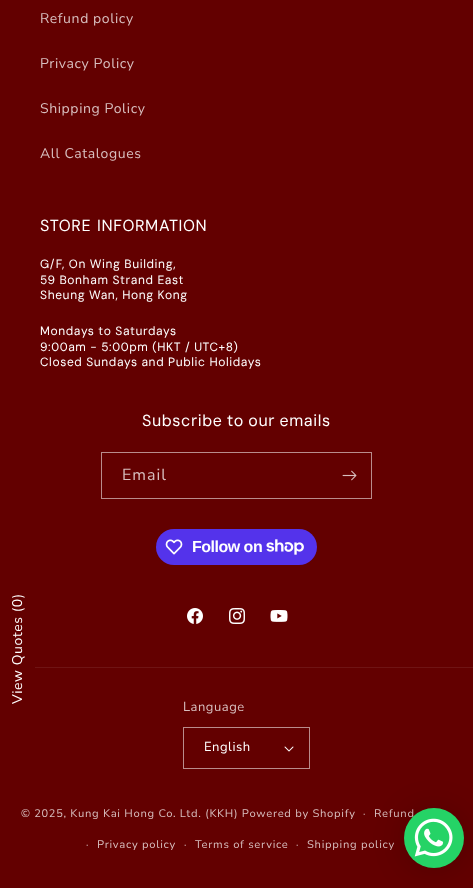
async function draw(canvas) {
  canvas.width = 473
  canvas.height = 888
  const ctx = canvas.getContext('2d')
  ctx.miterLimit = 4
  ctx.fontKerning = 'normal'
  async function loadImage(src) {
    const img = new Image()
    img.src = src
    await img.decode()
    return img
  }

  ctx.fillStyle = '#630000'
  ctx.fillRect(0, 0, 473, 888)
  ctx.letterSpacing = '0.6px'
  ctx.font = '14px "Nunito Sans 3"'
  ctx.fillStyle = '#fff'
  ctx.save()
  ctx.translate(22, 704)
  ctx.rotate(-90 * Math.PI / 180)
  ctx.fillText('View Quotes (0)', 0, 0)
  ctx.restore()
  ctx.fillStyle = '#d8bfbf'
  ctx.fillText('Refund policy', 40, 23)
  ctx.fillText('Privacy Policy', 40, 68)
  ctx.fillText('Shipping Policy', 40, 113)
  ctx.fillText('All Catalogues', 40, 158)
  ctx.wordSpacing = '1px'
  ctx.font = '16px DM Sans'
  ctx.fillStyle = '#fff'
  ctx.fillText('STORE INFORMATION', 40, 231)
  ctx.wordSpacing = '0px'
  ctx.font = '12px DM Sans'
  ctx.fillText('G/F, On Wing Building,', 40, 268)
  ctx.fillText('59 Bonham Strand East', 40, 284)
  ctx.fillText('Sheung Wan, Hong Kong', 40, 299)
  ctx.fillText('Mondays to Saturdays', 40, 335)
  ctx.fillText('9:00am - 5:00pm (HKT / UTC+8)', 40, 351)
  ctx.fillText('Closed Sundays and Public Holidays', 40, 366)
  ctx.wordSpacing = '-0.5px'
  ctx.font = '16px DM Sans'
  ctx.fillText('Subscribe to our emails', 142, 426)
  ctx.strokeStyle = '#b98c8c'
  ctx.strokeRect(101.5, 452.5, 270, 46)
  ctx.letterSpacing = '1px'
  ctx.wordSpacing = '0px'
  ctx.font = '16px "Nunito Sans 3"'
  ctx.fillStyle = '#d8bfbf'
  ctx.fillText('Email', 122, 480)
  ctx.drawImage(await loadImage('image0.png'), 342, 470, 15, 11)
  ctx.fillStyle = '#5433eb'
  ctx.beginPath()
  ctx.roundRect(156, 529, 161, 36, 18)
  ctx.fill()
  ctx.drawImage(await loadImage('image1.png'), 165, 539, 18, 16)
  ctx.letterSpacing = '-0.5px'
  ctx.font = 'bold 16px Liberation Sans'
  ctx.fillStyle = '#fff'
  ctx.fillText('Follow on', 192, 552)
  ctx.drawImage(await loadImage('image2.png'), 266, 539, 38, 16)
  ctx.drawImage(await loadImage('image3.png'), 187, 608, 16, 16)
  ctx.drawImage(await loadImage('image4.png'), 229, 608, 16, 16)
  ctx.drawImage(await loadImage('image5.png'), 270, 610, 18, 12)
  ctx.fillStyle = '#6f1414'
  ctx.fillRect(35, 667, 438, 1)
  ctx.letterSpacing = '0.5px'
  ctx.font = '13px "Nunito Sans 3"'
  ctx.fillStyle = '#d8bfbf'
  ctx.fillText('Language', 183, 711)
  ctx.drawImage(await loadImage('image6.png'), 284, 746, 10, 6)
  ctx.strokeRect(183.5, 727.5, 126, 41)
  ctx.fillStyle = '#fff'
  ctx.fillText('English', 204, 751)
  ctx.letterSpacing = '0.7px'
  ctx.font = '11px Nunito Sans'
  ctx.fillStyle = '#d8bfbf'
  ctx.fillText('© 2025, Kung Kai Hong Co. Ltd. (KKH) Powered by Shopify', 21, 817)
  ctx.font = '10px "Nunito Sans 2"'
  ctx.fillText('·', 363, 817)
  ctx.font = '11px Nunito Sans'
  ctx.fillText('Refund', 374, 817)
  ctx.font = '10px "Nunito Sans 2"'
  ctx.fillText('·', 86, 848)
  ctx.font = '11px Nunito Sans'
  ctx.fillText('Privacy policy', 97, 848)
  ctx.font = '10px "Nunito Sans 2"'
  ctx.fillText('·', 184, 848)
  ctx.font = '11px Nunito Sans'
  ctx.fillText('Terms of service', 195, 848)
  ctx.font = '10px "Nunito Sans 2"'
  ctx.fillText('·', 296, 848)
  ctx.font = '11px Nunito Sans'
  ctx.fillText('Shipping policy', 307, 848)
  ctx.fillStyle = '#00000029'
  ctx.filter = 'blur(16px)'
  ctx.beginPath()
  ctx.roundRect(404, 810, 60, 60, 30)
  ctx.fill()
  ctx.filter = 'none'
  ctx.fillStyle = '#25d366'
  ctx.beginPath()
  ctx.arc(434, 838, 30, 0, 2 * Math.PI)
  ctx.fill()
  ctx.drawImage(await loadImage('image7.png'), 414, 818, 39, 39)
}

draw(document.querySelector('canvas'))
